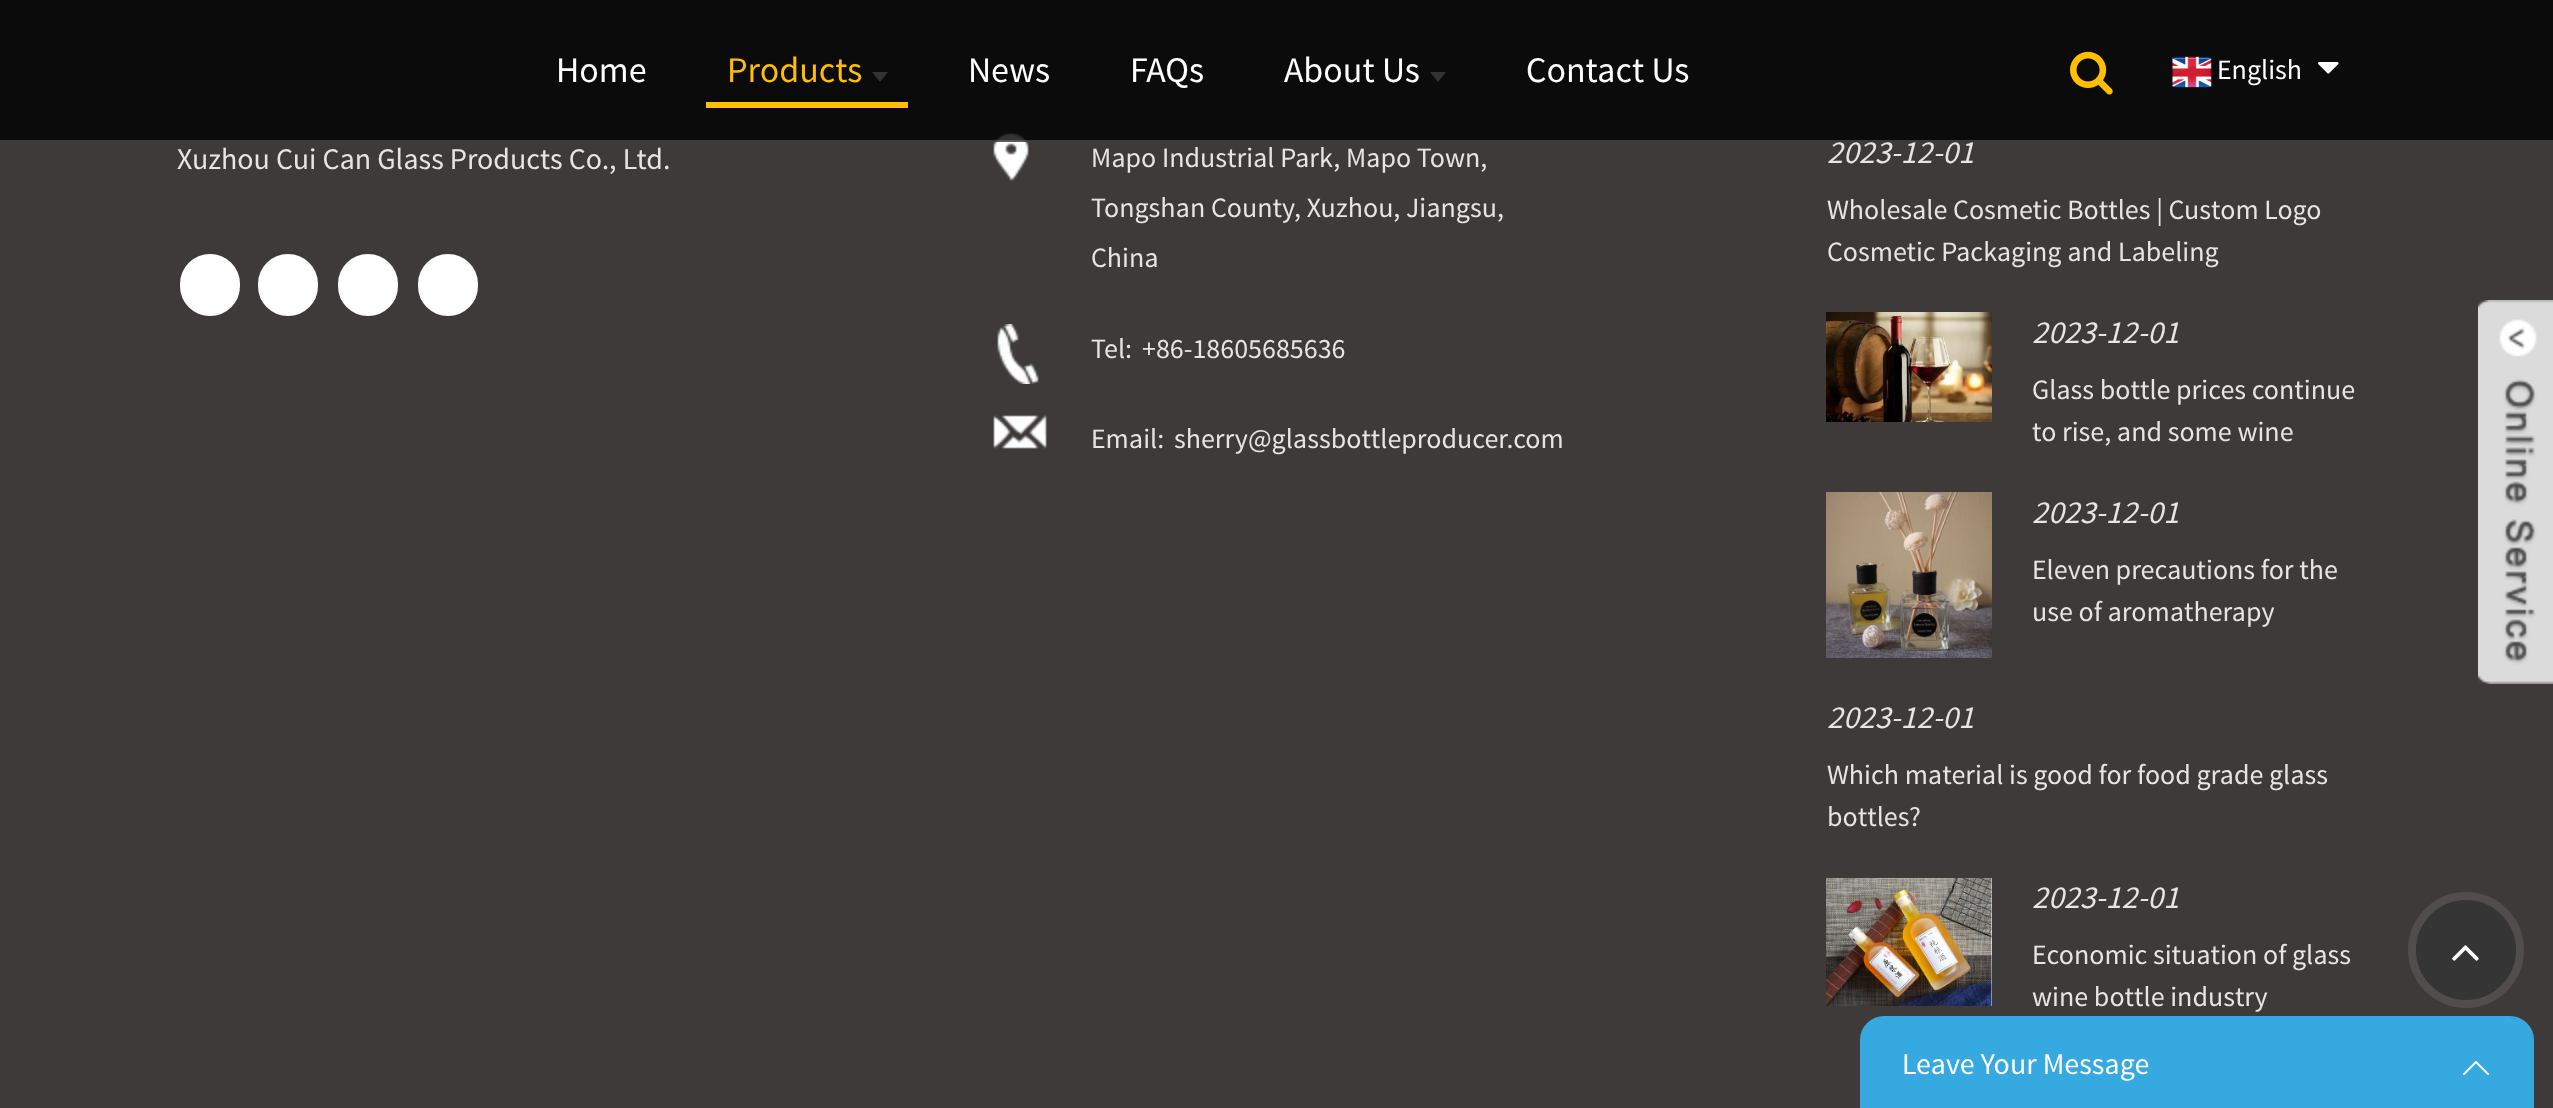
async function draw(canvas) {
  canvas.width = 2553
  canvas.height = 1108
  const ctx = canvas.getContext('2d')
  ctx.miterLimit = 4
  ctx.fontKerning = 'normal'
  async function loadImage(src) {
    const img = new Image()
    img.src = src
    await img.decode()
    return img
  }

  ctx.fillStyle = '#3e3a39'
  ctx.fillRect(0, 0, 2553, 1108)
  ctx.drawImage(await loadImage('image3.png'), 993, 133, 36, 48)
  ctx.fillStyle = '#000000cc'
  ctx.fillRect(0, 0, 2553, 142)
  ctx.fillStyle = '#ffffff33'
  ctx.fillRect(0, 140, 2553, 2)
  ctx.font = '36px Source Sans Pro'
  ctx.fillStyle = '#fff'
  ctx.fillText('Home', 556, 82)
  ctx.fillStyle = '#ffbe00'
  ctx.fillText('Products', 727, 82)
  ctx.fillStyle = '#333'
  ctx.beginPath()
  ctx.moveTo(872, 72)
  ctx.lineTo(888, 72)
  ctx.lineTo(880, 82)
  ctx.closePath()
  ctx.fill()
  ctx.fillStyle = '#ffbe00'
  ctx.fillRect(706, 102, 202, 6)
  ctx.fillStyle = '#fff'
  ctx.fillText('News', 968, 82)
  ctx.fillText('FAQs', 1130, 82)
  ctx.fillText('About Us', 1284, 82)
  ctx.fillStyle = '#333'
  ctx.beginPath()
  ctx.moveTo(1430, 72)
  ctx.lineTo(1446, 72)
  ctx.lineTo(1438, 82)
  ctx.closePath()
  ctx.fill()
  ctx.fillStyle = '#fff'
  ctx.fillText('Contact Us', 1526, 82)
  ctx.drawImage(await loadImage('image0.png'), 2070, 51, 43, 44)
  ctx.drawImage(await loadImage('image1.png'), 2172, 56, 40, 32)
  ctx.font = '28px Source Sans Pro'
  ctx.fillText('English', 2217, 79)
  ctx.drawImage(await loadImage('image2.png'), 2318, 62, 21, 12)
  ctx.font = '30px Source Sans Pro'
  ctx.fillStyle = '#e5e5e5'
  ctx.fillText('Xuzhou Cui Can Glass Products Co., Ltd.', 177, 169)
  ctx.fillStyle = '#fff'
  ctx.beginPath()
  ctx.roundRect(179, 253, 62, 64, 31)
  ctx.fill()
  ctx.strokeStyle = '#3e3a39'
  ctx.lineWidth = 2
  ctx.stroke()
  ctx.beginPath()
  ctx.roundRect(257, 253, 62, 64, 31)
  ctx.fill()
  ctx.stroke()
  ctx.beginPath()
  ctx.roundRect(337, 253, 62, 64, 31)
  ctx.fill()
  ctx.stroke()
  ctx.beginPath()
  ctx.roundRect(417, 253, 62, 64, 31)
  ctx.fill()
  ctx.stroke()
  ctx.font = '28px Source Sans Pro'
  ctx.fillStyle = '#e5e5e5'
  ctx.fillText('Mapo Industrial Park, Mapo Town,', 1091, 167)
  ctx.fillText('Tongshan County, Xuzhou, Jiangsu,', 1091, 217)
  ctx.fillText('China', 1091, 267)
  ctx.drawImage(await loadImage('image4.png'), 997, 324, 42, 60)
  ctx.fillText('Tel:', 1091, 358)
  ctx.fillText('+86-18605685636', 1142, 358)
  ctx.drawImage(await loadImage('image5.png'), 993, 415, 54, 34)
  ctx.fillText('Email:', 1091, 448)
  ctx.fillText('sherry@glassbottleproducer.com', 1174, 448)
  ctx.font = 'italic 32px Source Sans Pro'
  ctx.fillText('2023-12-01', 1827, 163)
  ctx.font = '28px Source Sans Pro'
  ctx.fillText('Wholesale Cosmetic Bottles | Custom Logo', 1827, 219)
  ctx.fillText('Cosmetic Packaging and Labeling', 1827, 261)
  ctx.drawImage(await loadImage('image6.png'), 1826, 312, 166, 110)
  ctx.font = 'italic 32px Source Sans Pro'
  ctx.fillText('2023-12-01', 2032, 343)
  ctx.font = '28px Source Sans Pro'
  ctx.fillText('Glass bottle prices continue', 2032, 399)
  ctx.fillText('to rise, and some wine', 2032, 441)
  ctx.drawImage(await loadImage('image7.png'), 1826, 492, 166, 166)
  ctx.font = 'italic 32px Source Sans Pro'
  ctx.fillText('2023-12-01', 2032, 523)
  ctx.font = '28px Source Sans Pro'
  ctx.fillText('Eleven precautions for the', 2032, 579)
  ctx.fillText('use of aromatherapy', 2032, 621)
  ctx.font = 'italic 32px Source Sans Pro'
  ctx.fillText('2023-12-01', 1827, 728)
  ctx.font = '28px Source Sans Pro'
  ctx.fillText('Which material is good for food grade glass', 1827, 784)
  ctx.fillText('bottles?', 1827, 826)
  ctx.drawImage(await loadImage('image8.png'), 1826, 878, 166, 128)
  ctx.font = 'italic 32px Source Sans Pro'
  ctx.fillText('2023-12-01', 2032, 908)
  ctx.font = '28px Source Sans Pro'
  ctx.fillText('Economic situation of glass', 2032, 964)
  ctx.fillText('wine bottle industry', 2032, 1006)
  ctx.beginPath()
  ctx.moveTo(1884, 1017)
  ctx.lineTo(2510, 1017)
  ctx.bezierCurveTo(2522.5, 1017, 2533, 1027.5, 2533, 1040)
  ctx.lineTo(2533, 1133)
  ctx.lineTo(1861, 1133)
  ctx.lineTo(1861, 1040)
  ctx.bezierCurveTo(1861, 1027.5, 1871.5, 1017, 1884, 1017)
  ctx.closePath()
  ctx.strokeStyle = '#36a9e1'
  ctx.stroke()
  ctx.fillStyle = '#36a9e1'
  ctx.beginPath()
  ctx.roundRect(1862, 1018, 670, 90, [20, 20, 0, 0])
  ctx.fill()
  ctx.font = '30px Source Sans Pro'
  ctx.fillStyle = '#fff'
  ctx.fillText('Leave Your Message', 1902, 1074)
  ctx.drawImage(await loadImage('image9.png'), 2463, 1061, 26, 14)
  ctx.drawImage(await loadImage('image10.png'), 2478, 300, 75, 384)
  ctx.fillStyle = '#363535'
  ctx.beginPath()
  ctx.arc(2466, 950, 50, 0, 2 * Math.PI)
  ctx.fill()
  ctx.beginPath()
  ctx.arc(2466, 950, 54, 0, 2 * Math.PI)
  ctx.strokeStyle = '#99999933'
  ctx.lineWidth = 8
  ctx.stroke()
  ctx.drawImage(await loadImage('image11.png'), 2452, 945, 27, 16)
}

draw(document.querySelector('canvas'))
